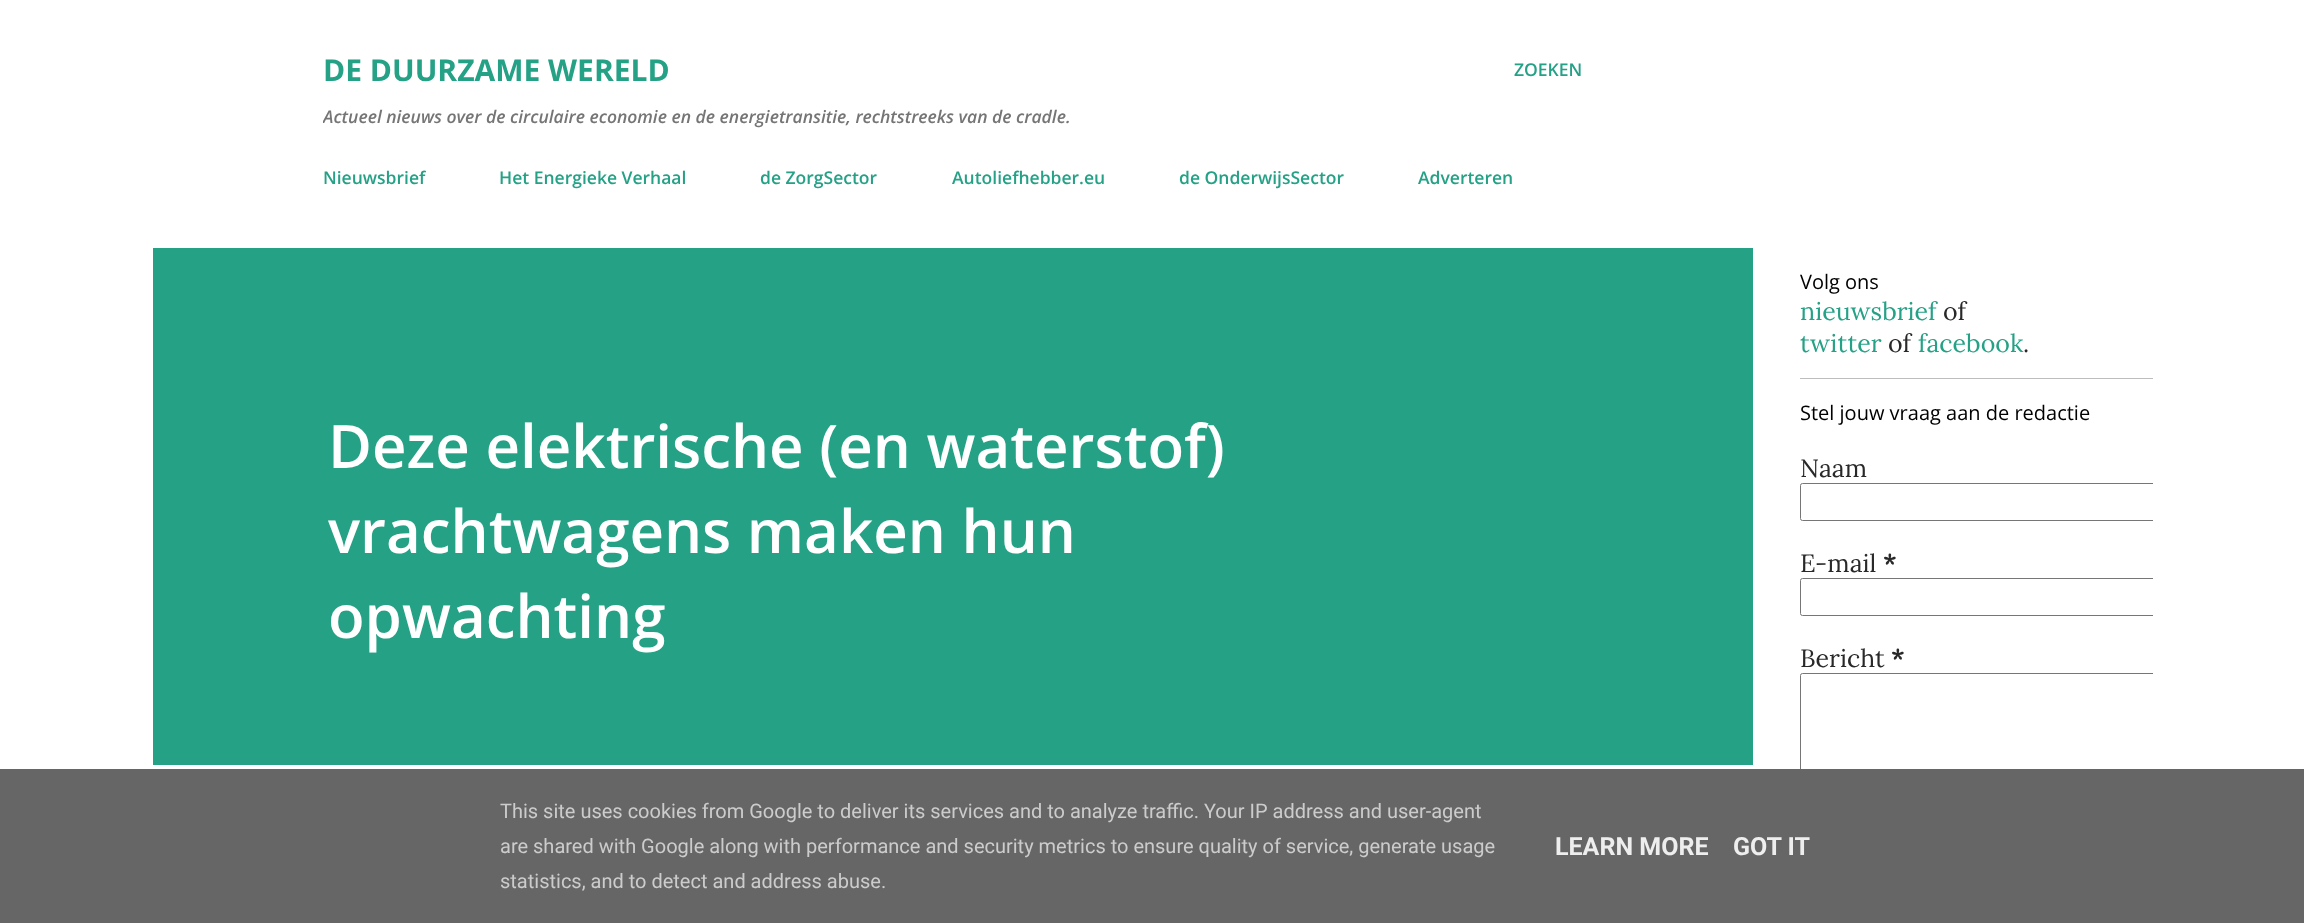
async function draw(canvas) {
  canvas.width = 2304
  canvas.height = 923
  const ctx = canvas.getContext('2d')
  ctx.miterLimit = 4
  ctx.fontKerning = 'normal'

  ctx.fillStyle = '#fff'
  ctx.fillRect(0, 0, 2304, 923)
  ctx.font = 'bold 30px Open Sans'
  ctx.fillStyle = '#25a186'
  ctx.fillText('DE DUURZAME WERELD', 323, 81)
  ctx.save()
  ctx.beginPath()
  ctx.rect(323, 55, 1260, 93)
  ctx.clip()
  ctx.font = 'italic 600 17.5px Open Sans'
  ctx.fillStyle = '#757575'
  ctx.fillText('Actueel nieuws over de circulaire economie en de energietransitie, rechtstreeks van de cradle.', 323, 123)
  ctx.restore()
  ctx.font = '600 17.5px Open Sans'
  ctx.fillText('ZOEKEN', 1514, 76)
  ctx.fillText('Nieuwsbrief', 323, 184)
  ctx.fillText('Het Energieke Verhaal', 499, 184)
  ctx.fillText('de ZorgSector', 760, 184)
  ctx.fillText('Autoliefhebber.eu', 952, 184)
  ctx.fillText('de OnderwijsSector', 1179, 184)
  ctx.fillText('Adverteren', 1418, 184)
  ctx.fillRect(153, 248, 1600, 517)
  ctx.font = '600 60px Open Sans'
  ctx.fillStyle = '#fff'
  ctx.fillText('Deze elektrische (en waterstof)', 328, 468)
  ctx.fillText('vrachtwagens maken hun', 328, 553)
  ctx.fillText('opwachting', 328, 638)
  ctx.font = '20px Open Sans'
  ctx.fillStyle = '#000'
  ctx.fillText('Volg ons', 1800, 289)
  ctx.font = '25px Lora'
  ctx.fillStyle = '#25a186'
  ctx.fillText('nieuwsbrief', 1800, 320)
  ctx.fillStyle = '#292929'
  ctx.fillText('of', 1943, 320)
  ctx.fillStyle = '#25a186'
  ctx.fillText('twitter', 1800, 352)
  ctx.fillStyle = '#292929'
  ctx.fillText('of', 1888, 352)
  ctx.fillStyle = '#25a186'
  ctx.fillText('facebook', 1918, 352)
  ctx.fillStyle = '#292929'
  ctx.fillText('.', 2023, 352)
  ctx.fillStyle = '#bdbdbd'
  ctx.fillRect(1800, 378, 353, 1)
  ctx.font = '20px Open Sans'
  ctx.fillStyle = '#000'
  ctx.fillText('Stel jouw vraag aan de redactie', 1800, 420)
  ctx.font = '25px Lora'
  ctx.fillStyle = '#292929'
  ctx.fillText('Naam', 1800, 477)
  ctx.save()
  ctx.beginPath()
  ctx.rect(1753, 248, 400, 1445)
  ctx.clip()
  ctx.beginPath()
  ctx.roundRect(1800.5, 483.5, 435, 37, 2)
  ctx.strokeStyle = '#767676'
  ctx.stroke()
  ctx.restore()
  ctx.fillText('E-mail', 1800, 572)
  ctx.font = 'bold 25px Lora'
  ctx.fillText('*', 1883, 572)
  ctx.save()
  ctx.beginPath()
  ctx.rect(1753, 248, 400, 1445)
  ctx.clip()
  ctx.beginPath()
  ctx.roundRect(1800.5, 578.5, 435, 37, 2)
  ctx.strokeStyle = '#767676'
  ctx.stroke()
  ctx.restore()
  ctx.font = '25px Lora'
  ctx.fillText('Bericht', 1800, 667)
  ctx.font = 'bold 25px Lora'
  ctx.fillText('*', 1891, 667)
  ctx.save()
  ctx.beginPath()
  ctx.rect(1753, 248, 400, 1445)
  ctx.clip()
  ctx.beginPath()
  ctx.roundRect(1800.5, 673.5, 369, 162, 2)
  ctx.strokeStyle = '#767676'
  ctx.stroke()
  ctx.restore()
  ctx.fillStyle = '#666'
  ctx.fillRect(0, 769, 2304, 154)
  ctx.font = '20px Roboto'
  ctx.fillStyle = '#ccc'
  ctx.fillText('This site uses cookies from Google to deliver its services and to analyze traffic. Your IP address and user-agent', 500, 818)
  ctx.fillText('are shared with Google along with performance and security metrics to ensure quality of service, generate usage', 500, 853)
  ctx.fillText('statistics, and to detect and address abuse.', 500, 888)
  ctx.font = 'bold 25px Roboto'
  ctx.fillStyle = '#eee'
  ctx.fillText('LEARN MORE', 1555, 855)
  ctx.fillText('GOT IT', 1733, 855)
}

draw(document.querySelector('canvas'))
